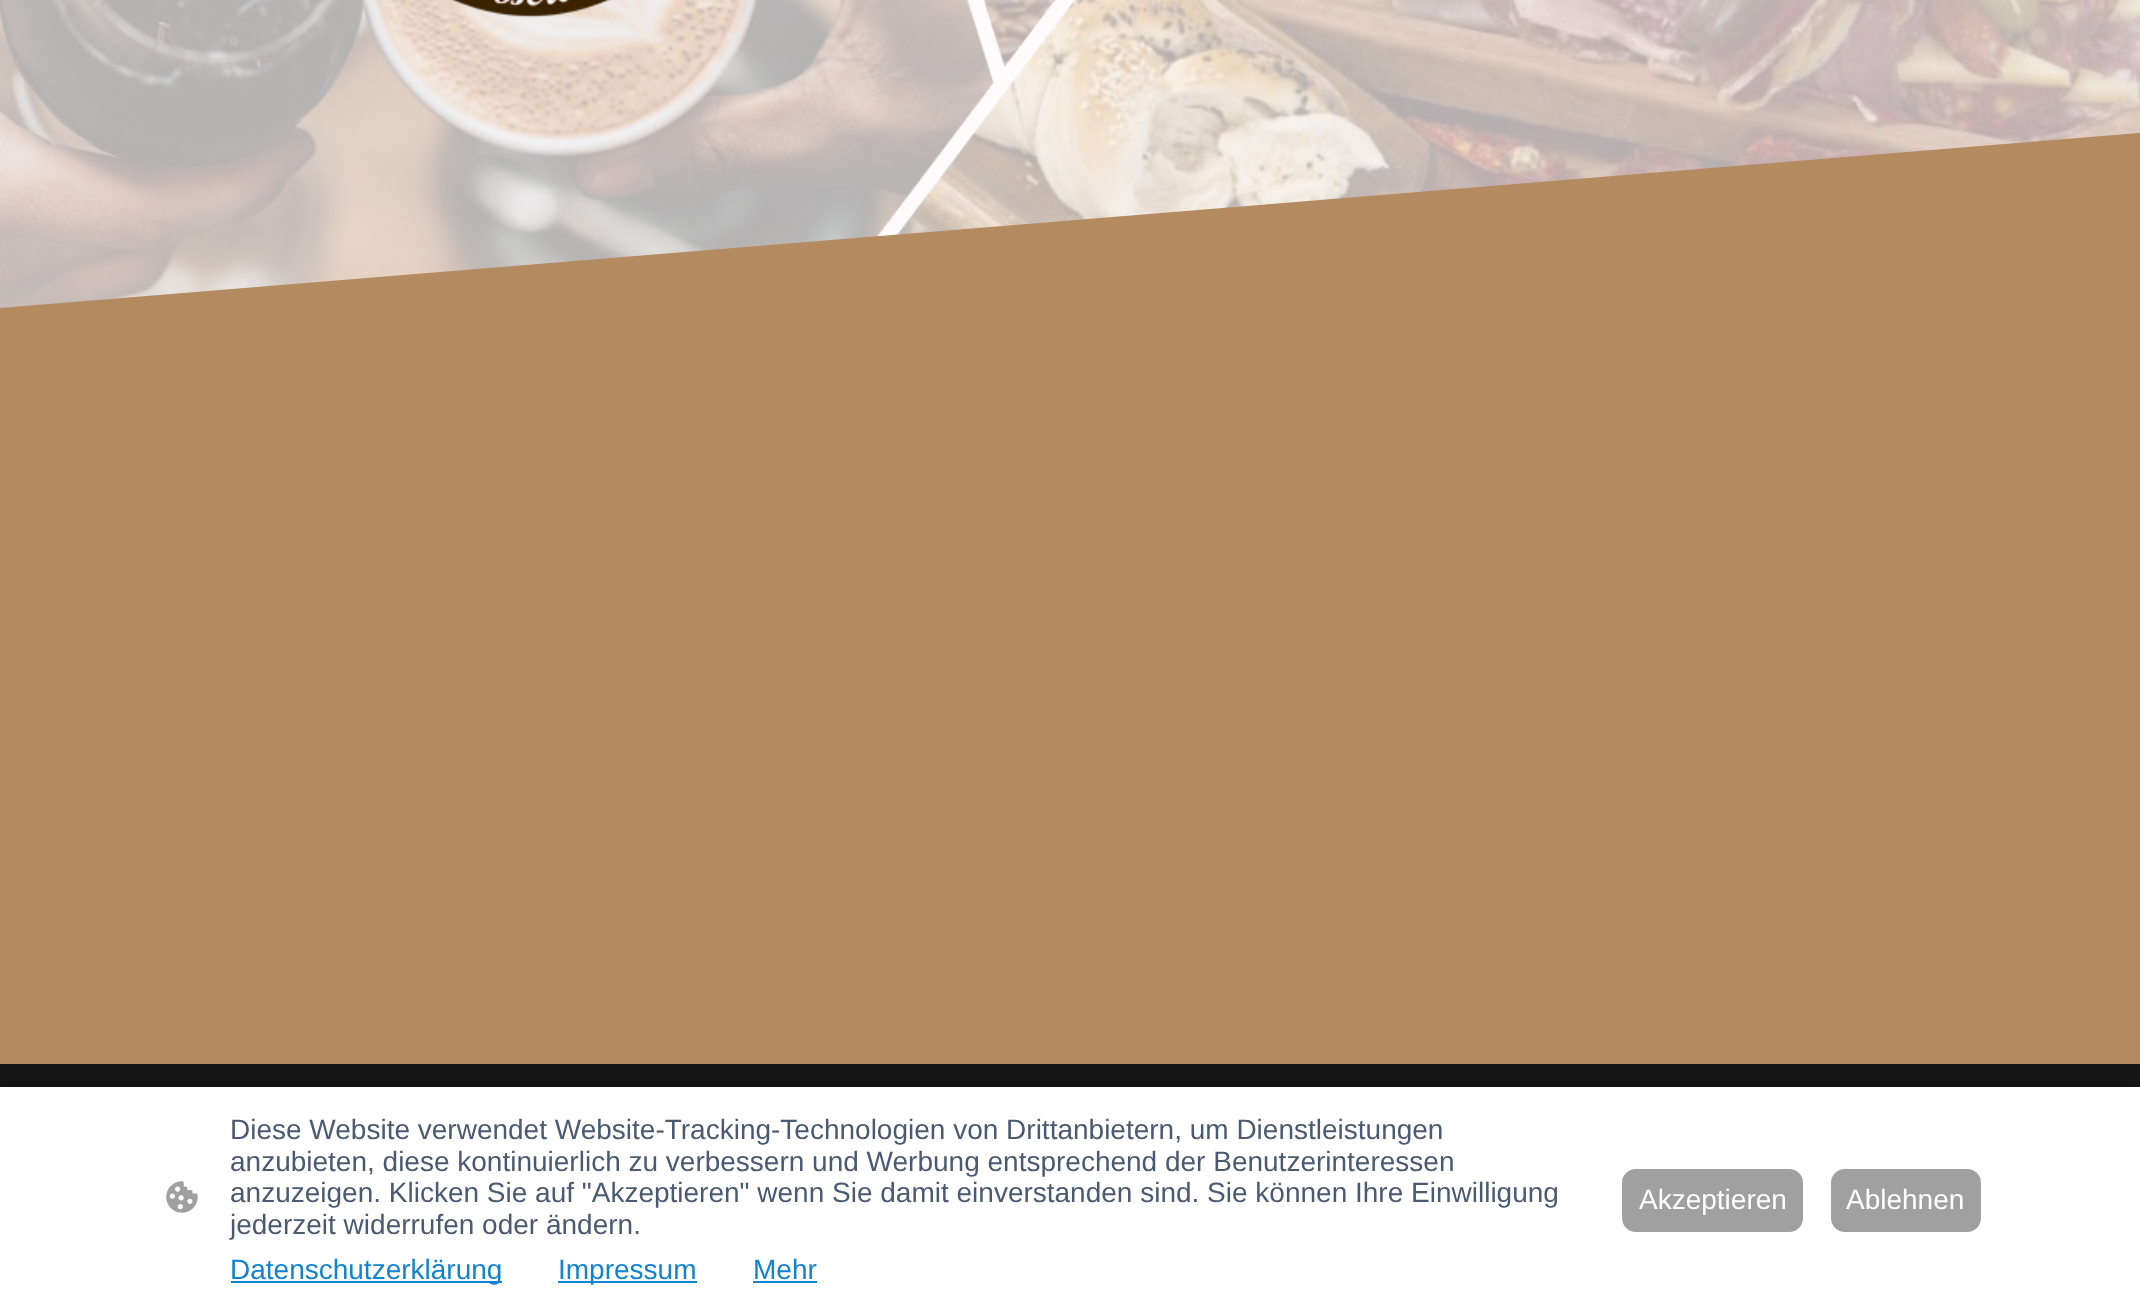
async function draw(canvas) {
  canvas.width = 2140
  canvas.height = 1313
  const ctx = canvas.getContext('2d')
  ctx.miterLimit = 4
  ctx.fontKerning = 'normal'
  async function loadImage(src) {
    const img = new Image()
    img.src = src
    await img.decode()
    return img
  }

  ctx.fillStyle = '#fff'
  ctx.fillRect(0, 0, 2140, 1313)
  ctx.drawImage(await loadImage('image0.png'), 0, 0, 2140, 308)
  ctx.drawImage(await loadImage('image1.png'), 450, 0, 162, 18)
  ctx.fillStyle = '#b48a61'
  ctx.beginPath()
  ctx.moveTo(0, 308)
  ctx.lineTo(0, 1064)
  ctx.lineTo(2140, 1064)
  ctx.lineTo(2140, 133)
  ctx.lineTo(2139, 133)
  ctx.closePath()
  ctx.fill()
  ctx.fillStyle = '#151515'
  ctx.fillRect(0, 1064, 2140, 23)
  ctx.fillStyle = '#000000a1'
  ctx.filter = 'blur(7px)'
  ctx.beginPath()
  ctx.rect(11, 1092, 2119, 207)
  ctx.fill()
  ctx.filter = 'none'
  ctx.fillStyle = '#fff'
  ctx.fillRect(0, 1087, 2140, 226)
  ctx.drawImage(await loadImage('image2.png'), 166, 1181, 32, 32)
  ctx.font = '28px Liberation Sans'
  ctx.fillStyle = '#4a5a73'
  ctx.fillText('Diese Website verwendet Website-Tracking-Technologien von Drittanbietern, um Dienstleistungen', 230, 1139)
  ctx.fillText('anzubieten, diese kontinuierlich zu verbessern und Werbung entsprechend der Benutzerinteressen', 230, 1171)
  ctx.fillText('anzuzeigen. Klicken Sie auf "Akzeptieren" wenn Sie damit einverstanden sind. Sie können Ihre Einwilligung', 230, 1202)
  ctx.fillText('jederzeit widerrufen oder ändern.', 230, 1234)
  ctx.fillStyle = '#1183d1'
  ctx.fillRect(231, 1281, 271, 2)
  ctx.fillText('Datenschutzerklärung', 230, 1279)
  ctx.fillRect(558, 1281, 139, 2)
  ctx.fillText('Impressum', 558, 1279)
  ctx.fillText('Mehr', 753, 1279)
  ctx.fillRect(753, 1281, 64, 2)
  ctx.fillStyle = '#a0a0a0'
  ctx.beginPath()
  ctx.roundRect(1623, 1170, 179, 61, 13)
  ctx.fill()
  ctx.strokeStyle = '#a0a0a0'
  ctx.lineWidth = 2
  ctx.stroke()
  ctx.fillStyle = '#fff'
  ctx.fillText('Akzeptieren', 1639, 1209)
  ctx.fillStyle = '#a0a0a0'
  ctx.beginPath()
  ctx.roundRect(1832, 1170, 148, 61, 13)
  ctx.fill()
  ctx.stroke()
  ctx.fillStyle = '#fff'
  ctx.fillText('Ablehnen', 1846, 1209)
}

draw(document.querySelector('canvas'))
